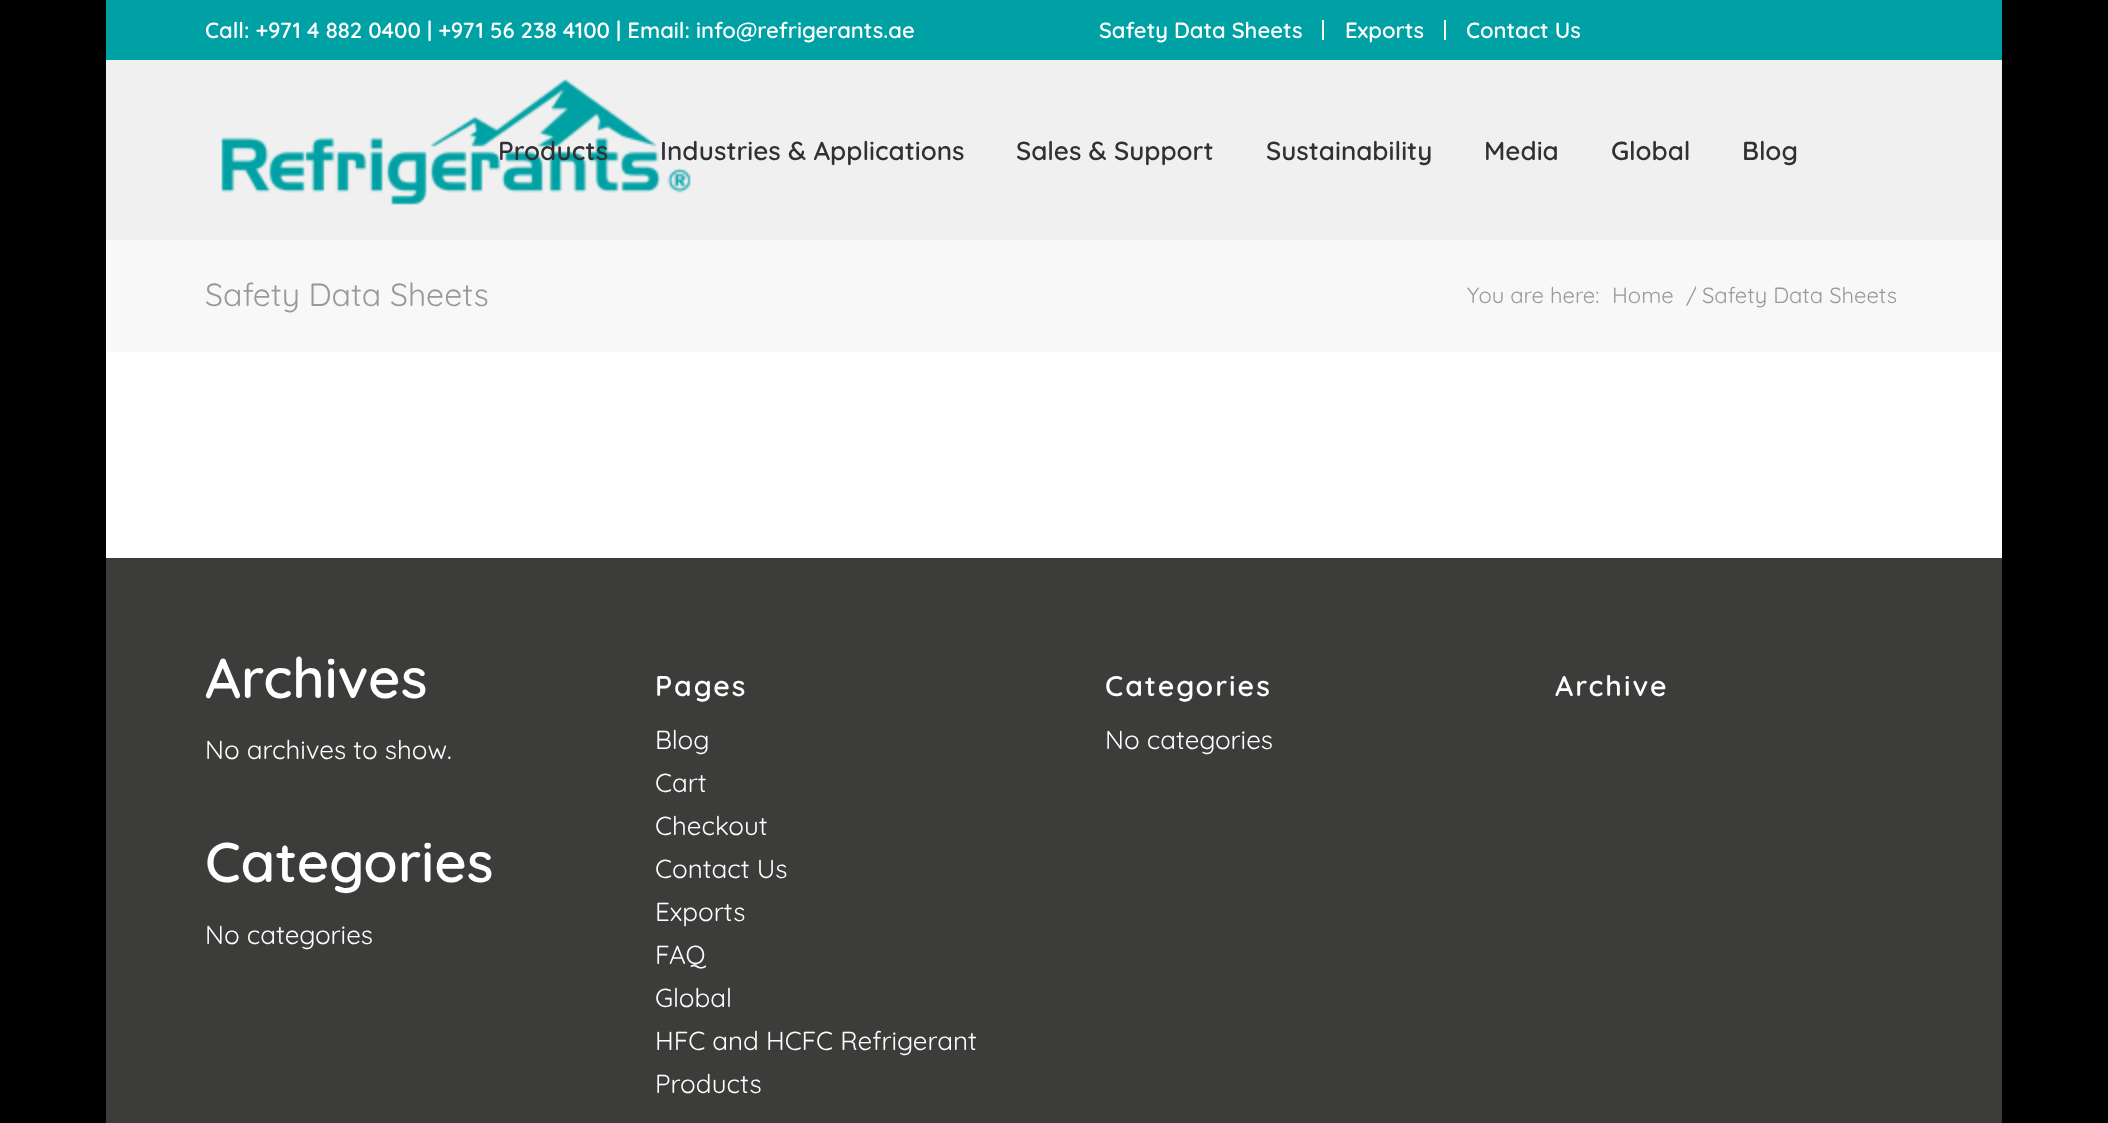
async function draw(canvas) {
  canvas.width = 2108
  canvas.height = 1123
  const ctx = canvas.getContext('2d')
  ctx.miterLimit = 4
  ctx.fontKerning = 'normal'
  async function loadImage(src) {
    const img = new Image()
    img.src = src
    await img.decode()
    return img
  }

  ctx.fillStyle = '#000'
  ctx.fillRect(0, 0, 2108, 1123)
  ctx.fillStyle = '#00a1a4'
  ctx.fillRect(106, 0, 1896, 60)
  ctx.font = '600 22px Quicksand'
  ctx.fillStyle = '#fff'
  ctx.fillText('Call: +971 4 882 0400 | +971 56 238 4100 | Email: info@refrigerants.ae', 205, 38)
  ctx.fillStyle = '#f2f2f2'
  ctx.fillRect(1322, 20, 2, 20)
  ctx.fillStyle = '#fff'
  ctx.fillText('Safety Data Sheets', 1099, 38)
  ctx.fillStyle = '#f2f2f2'
  ctx.fillRect(1444, 20, 2, 20)
  ctx.fillStyle = '#fff'
  ctx.fillText('Exports', 1345, 38)
  ctx.fillText('Contact Us', 1466, 38)
  ctx.fillStyle = '#f0f0f0'
  ctx.fillRect(106, 60, 1896, 180)
  ctx.drawImage(await loadImage('image0.png'), 221, 79, 470, 126)
  ctx.font = '600 26px Quicksand'
  ctx.fillStyle = '#303133'
  ctx.fillText('Products', 498, 160)
  ctx.fillText('Industries & Applications', 660, 160)
  ctx.fillText('Sales & Support', 1016, 160)
  ctx.fillText('Sustainability', 1266, 160)
  ctx.fillText('Media', 1484, 160)
  ctx.fillText('Global', 1611, 160)
  ctx.fillText('Blog', 1742, 160)
  ctx.fillStyle = '#f8f8f8'
  ctx.fillRect(106, 240, 1896, 112)
  ctx.font = '32px Quicksand'
  ctx.fillStyle = '#999'
  ctx.fillText('Safety Data Sheets', 205, 306)
  ctx.font = '22px Quicksand'
  ctx.fillText('You are here:', 1467, 303)
  ctx.fillText('Home', 1612, 303)
  ctx.save()
  ctx.beginPath()
  ctx.rect(1680, 280, 16, 30)
  ctx.clip()
  ctx.fillText('/', 1686, 303)
  ctx.restore()
  ctx.fillText('Safety Data Sheets', 1702, 303)
  ctx.fillStyle = '#fff'
  ctx.fillRect(106, 352, 1896, 206)
  ctx.fillStyle = '#3c3c3b'
  ctx.fillRect(106, 558, 1896, 565)
  ctx.font = '600 56px Quicksand'
  ctx.fillStyle = '#fff'
  ctx.fillText('Archives', 205, 698)
  ctx.font = '26px Quicksand'
  ctx.fillText('No archives to show.', 205, 759)
  ctx.font = '600 56px Quicksand'
  ctx.fillText('Categories', 205, 882)
  ctx.font = '26px Quicksand'
  ctx.fillText('No categories', 205, 944)
  ctx.letterSpacing = '2px'
  ctx.font = '600 28.5px Quicksand'
  ctx.fillText('Pages', 655, 696)
  ctx.letterSpacing = '0px'
  ctx.font = '26px Quicksand'
  ctx.fillText('Blog', 655, 749)
  ctx.fillText('Cart', 655, 792)
  ctx.fillText('Checkout', 655, 835)
  ctx.fillText('Contact Us', 655, 878)
  ctx.fillText('Exports', 655, 921)
  ctx.fillText('FAQ', 655, 964)
  ctx.fillText('Global', 655, 1007)
  ctx.fillText('HFC and HCFC Refrigerant', 655, 1050)
  ctx.fillText('Products', 655, 1093)
  ctx.letterSpacing = '2px'
  ctx.font = '600 28.5px Quicksand'
  ctx.fillText('Categories', 1105, 696)
  ctx.letterSpacing = '0px'
  ctx.font = '26px Quicksand'
  ctx.fillText('No categories', 1105, 749)
  ctx.letterSpacing = '2px'
  ctx.font = '600 28.5px Quicksand'
  ctx.fillText('Archive', 1555, 696)
}

draw(document.querySelector('canvas'))
